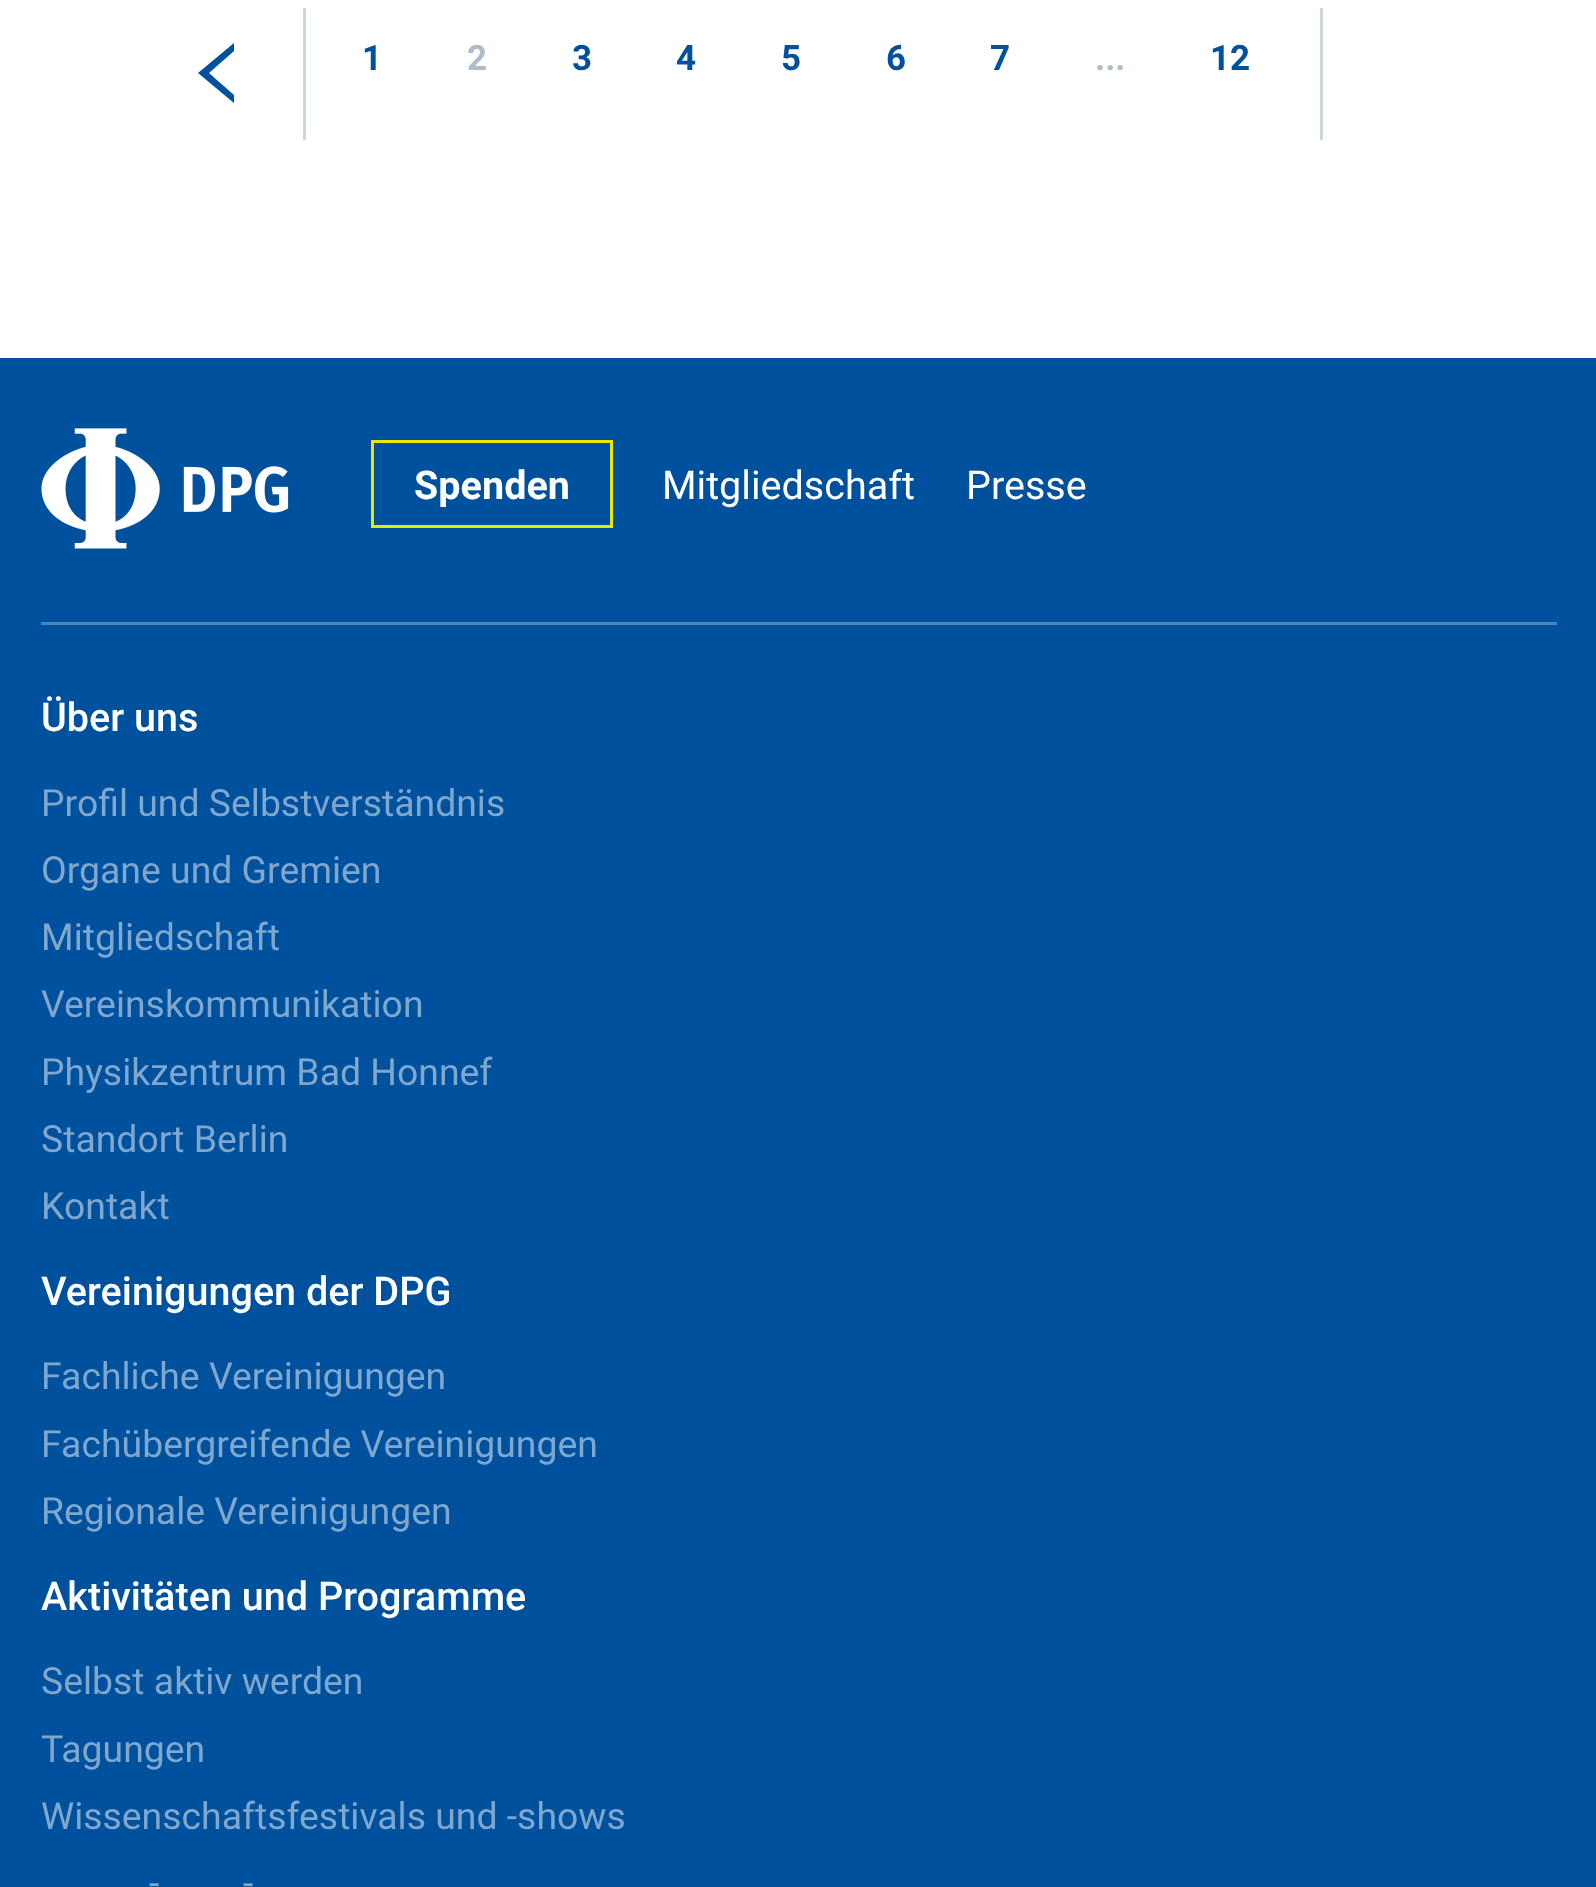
async function draw(canvas) {
  canvas.width = 1596
  canvas.height = 1887
  const ctx = canvas.getContext('2d')
  ctx.miterLimit = 4
  ctx.fontKerning = 'normal'
  async function loadImage(src) {
    const img = new Image()
    img.src = src
    await img.decode()
    return img
  }

  ctx.fillStyle = '#fff'
  ctx.fillRect(0, 0, 1596, 1887)
  ctx.fillStyle = '#ced6dd'
  ctx.fillRect(303, 8, 3, 132)
  ctx.fillStyle = '#00519d'
  ctx.beginPath()
  ctx.moveTo(234, 103)
  ctx.lineTo(234, 95)
  ctx.lineTo(209, 73)
  ctx.lineTo(234, 51)
  ctx.lineTo(234, 43)
  ctx.lineTo(198, 73)
  ctx.closePath()
  ctx.fill('evenodd')
  ctx.font = 'bold 35px Roboto'
  ctx.fillText('1', 362, 70)
  ctx.fillStyle = '#afbcc9'
  ctx.fillText('2', 467, 70)
  ctx.fillStyle = '#00519d'
  ctx.fillText('3', 572, 70)
  ctx.fillText('4', 676, 70)
  ctx.fillText('5', 781, 70)
  ctx.fillText('6', 886, 70)
  ctx.fillText('7', 990, 70)
  ctx.fillStyle = '#afbcc9'
  ctx.fillText('...', 1095, 70)
  ctx.fillStyle = '#00519d'
  ctx.fillText('12', 1210, 70)
  ctx.fillStyle = '#ced6dd'
  ctx.fillRect(1320, 8, 3, 132)
  ctx.fillStyle = '#00519d'
  ctx.fillRect(0, 358, 1596, 1529)
  ctx.fillStyle = '#4d85ba'
  ctx.fillRect(41, 622, 1516, 3)
  ctx.drawImage(await loadImage('image0.png'), 41, 428, 248, 121)
  ctx.strokeStyle = '#e8e900'
  ctx.lineWidth = 3
  ctx.strokeRect(372.5, 441.5, 239, 85)
  ctx.font = 'bold 39.6px Roboto'
  ctx.fillStyle = '#fff'
  ctx.fillText('Spenden', 414, 499)
  ctx.font = '39.6px Roboto'
  ctx.fillText('Mitgliedschaft', 662, 499)
  ctx.fillText('Presse', 966, 499)
  ctx.font = '500 39.6px Roboto'
  ctx.fillText('Über uns', 41, 731)
  ctx.font = '37.4px Roboto'
  ctx.fillStyle = '#80a8ce'
  ctx.fillText('Profil und Selbstverständnis', 41, 816)
  ctx.fillText('Organe und Gremien', 41, 883)
  ctx.fillText('Mitgliedschaft', 41, 950)
  ctx.fillText('Vereinskommunikation', 41, 1017)
  ctx.fillText('Physikzentrum Bad Honnef', 41, 1085)
  ctx.fillText('Standort Berlin', 41, 1152)
  ctx.fillText('Kontakt', 41, 1219)
  ctx.font = '500 39.6px Roboto'
  ctx.fillStyle = '#fff'
  ctx.fillText('Vereinigungen der DPG', 41, 1305)
  ctx.font = '37.4px Roboto'
  ctx.fillStyle = '#80a8ce'
  ctx.fillText('Fachliche Vereinigungen', 41, 1389)
  ctx.fillText('Fachübergreifende Vereinigungen', 41, 1457)
  ctx.fillText('Regionale Vereinigungen', 41, 1524)
  ctx.font = '500 39.6px Roboto'
  ctx.fillStyle = '#fff'
  ctx.fillText('Aktivitäten und Programme', 41, 1610)
  ctx.font = '37.4px Roboto'
  ctx.fillStyle = '#80a8ce'
  ctx.fillText('Selbst aktiv werden', 41, 1694)
  ctx.fillText('Tagungen', 41, 1762)
  ctx.fillText('Wissenschaftsfestivals und -shows', 41, 1829)
  ctx.fillText('-', 149, 1896)
  ctx.fillText('-', 243, 1896)
}

draw(document.querySelector('canvas'))
